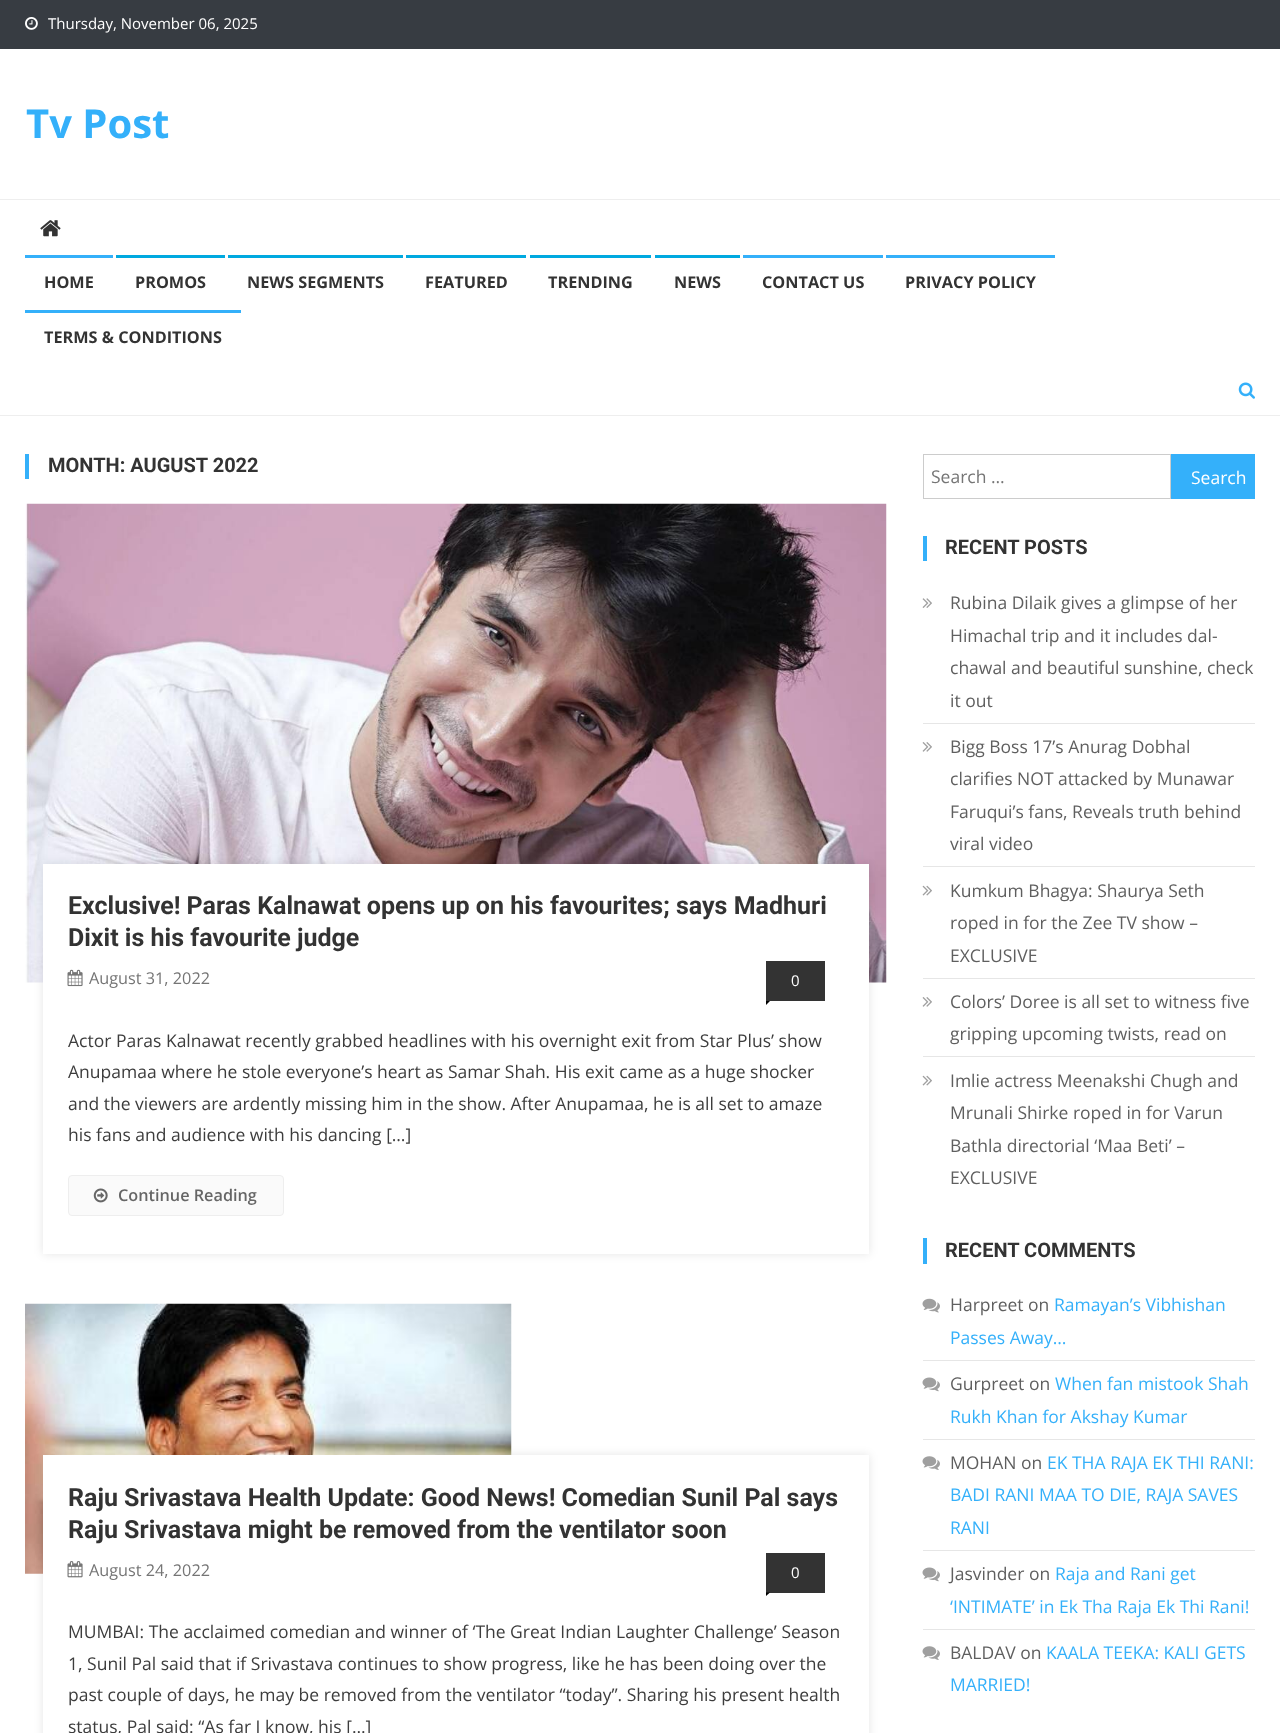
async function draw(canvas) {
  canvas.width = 1280
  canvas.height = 1733
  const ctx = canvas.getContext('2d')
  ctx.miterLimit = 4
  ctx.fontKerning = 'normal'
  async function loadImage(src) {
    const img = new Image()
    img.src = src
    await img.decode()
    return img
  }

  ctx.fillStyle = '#fff'
  ctx.fillRect(0, 0, 1280, 1733)
  ctx.fillStyle = '#373c42'
  ctx.fillRect(0, 0, 1280, 49)
  ctx.drawImage(await loadImage('image0.png'), 25, 17, 13, 13)
  ctx.font = '15px Open Sans'
  ctx.fillStyle = '#fff'
  ctx.fillText('Thursday, November 06, 2025', 48, 29)
  ctx.font = 'bold 40px Open Sans'
  ctx.fillStyle = '#34b0fa'
  ctx.fillText('Tv Post', 26, 138)
  ctx.fillStyle = '#eee'
  ctx.fillRect(0, 199, 1280, 1)
  ctx.fillRect(0, 415, 1280, 1)
  ctx.drawImage(await loadImage('image1.png'), 40, 220, 21, 17)
  ctx.fillStyle = '#34b0fa'
  ctx.fillRect(25, 255, 88, 3)
  ctx.font = 'bold 16.25px Open Sans'
  ctx.fillStyle = '#333'
  ctx.fillText('HOME', 44, 288)
  ctx.fillStyle = '#00a9e0'
  ctx.fillRect(116, 255, 109, 3)
  ctx.fillStyle = '#333'
  ctx.fillText('PROMOS', 135, 288)
  ctx.fillStyle = '#00a9e0'
  ctx.fillRect(228, 255, 175, 3)
  ctx.fillStyle = '#333'
  ctx.fillText('NEWS SEGMENTS', 247, 288)
  ctx.fillStyle = '#00a9e0'
  ctx.fillRect(406, 255, 120, 3)
  ctx.fillStyle = '#333'
  ctx.fillText('FEATURED', 425, 288)
  ctx.fillStyle = '#00a9e0'
  ctx.fillRect(530, 255, 121, 3)
  ctx.fillStyle = '#333'
  ctx.fillText('TRENDING', 548, 288)
  ctx.fillStyle = '#00a9e0'
  ctx.fillRect(655, 255, 85, 3)
  ctx.fillStyle = '#333'
  ctx.fillText('NEWS', 674, 288)
  ctx.fillStyle = '#34b0fa'
  ctx.fillRect(743, 255, 140, 3)
  ctx.fillStyle = '#333'
  ctx.fillText('CONTACT US', 762, 288)
  ctx.fillStyle = '#34b0fa'
  ctx.fillRect(886, 255, 169, 3)
  ctx.fillStyle = '#333'
  ctx.fillText('PRIVACY POLICY', 905, 288)
  ctx.fillStyle = '#34b0fa'
  ctx.fillRect(25, 310, 216, 3)
  ctx.fillStyle = '#333'
  ctx.fillText('TERMS & CONDITIONS', 44, 343)
  ctx.drawImage(await loadImage('image2.png'), 1238, 382, 17, 17)
  ctx.fillStyle = '#34b0fa'
  ctx.fillRect(25, 454, 4, 25)
  ctx.font = 'bold 20px Roboto'
  ctx.fillStyle = '#333'
  ctx.fillText('MONTH: AUGUST 2022', 48, 472)
  ctx.drawImage(await loadImage('image3.png'), 25, 503, 862, 480)
  ctx.fillStyle = '#0000001a'
  ctx.filter = 'blur(5px)'
  ctx.beginPath()
  ctx.rect(43, 864, 826, 390)
  ctx.fill()
  ctx.filter = 'none'
  ctx.fillStyle = '#fff'
  ctx.fillRect(43, 864, 826, 390)
  ctx.font = 'bold 25px Roboto'
  ctx.fillStyle = '#333'
  ctx.fillText('Exclusive! Paras Kalnawat opens up on his favourites; says Madhuri', 68, 914)
  ctx.fillText('Dixit is his favourite judge', 68, 946)
  ctx.drawImage(await loadImage('image4.png'), 67, 969, 16, 18)
  ctx.font = '16.25px Open Sans'
  ctx.fillStyle = '#757575'
  ctx.fillText('August 31, 2022', 89, 984)
  ctx.fillStyle = '#333'
  ctx.fillRect(766, 961, 59, 40)
  ctx.font = '15px Open Sans'
  ctx.fillStyle = '#fff'
  ctx.fillText('0', 791, 986)
  ctx.fillStyle = '#000'
  ctx.beginPath()
  ctx.moveTo(766, 1001)
  ctx.lineTo(770, 1001)
  ctx.lineTo(766, 1005)
  ctx.closePath()
  ctx.fill()
  ctx.font = '17.5px Open Sans'
  ctx.fillStyle = '#3d3d3d'
  ctx.fillText('Actor Paras Kalnawat recently grabbed headlines with his overnight exit from Star Plus’ show', 68, 1047)
  ctx.fillText('Anupamaa where he stole everyone’s heart as Samar Shah. His exit came as a huge shocker', 68, 1078)
  ctx.fillText('and the viewers are ardently missing him in the show. After Anupamaa, he is all set to amaze', 68, 1110)
  ctx.fillText('his fans and audience with his dancing […]', 68, 1141)
  ctx.fillStyle = '#fafafa'
  ctx.beginPath()
  ctx.roundRect(68.5, 1175.5, 215, 40, 3.5)
  ctx.fill()
  ctx.strokeStyle = '#eee'
  ctx.stroke()
  ctx.drawImage(await loadImage('image5.png'), 93, 1188, 15, 15)
  ctx.font = '600 16.25px Open Sans'
  ctx.fillStyle = '#666'
  ctx.fillText('Continue Reading', 118, 1201)
  ctx.drawImage(await loadImage('image6.png'), 25, 1303, 487, 271)
  ctx.fillStyle = '#0000001a'
  ctx.filter = 'blur(5px)'
  ctx.beginPath()
  ctx.rect(43, 1455, 826, 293)
  ctx.fill()
  ctx.filter = 'none'
  ctx.fillStyle = '#fff'
  ctx.fillRect(43, 1455, 826, 278)
  ctx.font = 'bold 25px Roboto'
  ctx.fillStyle = '#333'
  ctx.fillText('Raju Srivastava Health Update: Good News! Comedian Sunil Pal says', 68, 1506)
  ctx.fillText('Raju Srivastava might be removed from the ventilator soon', 68, 1538)
  ctx.drawImage(await loadImage('image7.png'), 67, 1561, 16, 17)
  ctx.font = '16.25px Open Sans'
  ctx.fillStyle = '#757575'
  ctx.fillText('August 24, 2022', 89, 1576)
  ctx.fillStyle = '#333'
  ctx.fillRect(766, 1553, 59, 40)
  ctx.font = '15px Open Sans'
  ctx.fillStyle = '#fff'
  ctx.fillText('0', 791, 1578)
  ctx.fillStyle = '#000'
  ctx.beginPath()
  ctx.moveTo(766, 1592.5)
  ctx.lineTo(770, 1592.5)
  ctx.lineTo(766, 1596)
  ctx.closePath()
  ctx.fill()
  ctx.font = '17.5px Open Sans'
  ctx.fillStyle = '#3d3d3d'
  ctx.fillText('MUMBAI: The acclaimed comedian and winner of ‘The Great Indian Laughter Challenge’ Season', 68, 1638)
  ctx.fillText('1, Sunil Pal said that if Srivastava continues to show progress, like he has been doing over the', 68, 1670)
  ctx.fillText('past couple of days, he may be removed from the ventilator “today”. Sharing his present health', 68, 1701)
  ctx.fillText('status, Pal said: “As far I know, his […]', 68, 1733)
  ctx.strokeStyle = '#ccc'
  ctx.strokeRect(923.5, 454.5, 247, 44)
  ctx.fillStyle = '#757575'
  ctx.fillText('Search …', 931, 483)
  ctx.fillStyle = '#34b0fa'
  ctx.fillRect(1171, 454, 84, 45)
  ctx.fillStyle = '#fff'
  ctx.fillText('Search', 1191, 484)
  ctx.fillStyle = '#34b0fa'
  ctx.fillRect(923, 536, 4, 25)
  ctx.font = 'bold 20px Roboto'
  ctx.fillStyle = '#333'
  ctx.fillText('RECENT POSTS', 945, 554)
  ctx.fillStyle = '#e6e6e6'
  ctx.fillRect(923, 723, 332, 1)
  ctx.drawImage(await loadImage('image8.png'), 922, 598, 10, 10)
  ctx.font = '17.5px Open Sans'
  ctx.fillStyle = '#5f5f5f'
  ctx.fillText('Rubina Dilaik gives a glimpse of her', 950, 609)
  ctx.fillText('Himachal trip and it includes dal-', 950, 642)
  ctx.fillText('chawal and beautiful sunshine, check', 950, 674)
  ctx.fillText('it out', 950, 707)
  ctx.fillStyle = '#e6e6e6'
  ctx.fillRect(923, 866, 332, 1)
  ctx.drawImage(await loadImage('image9.png'), 922, 742, 10, 10)
  ctx.fillStyle = '#5f5f5f'
  ctx.fillText('Bigg Boss 17’s Anurag Dobhal', 950, 753)
  ctx.fillText('clarifies NOT attacked by Munawar', 950, 785)
  ctx.fillText('Faruqui’s fans, Reveals truth behind', 950, 818)
  ctx.fillText('viral video', 950, 850)
  ctx.fillStyle = '#e6e6e6'
  ctx.fillRect(923, 978, 332, 1)
  ctx.drawImage(await loadImage('image10.png'), 922, 885, 10, 11)
  ctx.fillStyle = '#5f5f5f'
  ctx.fillText('Kumkum Bhagya: Shaurya Seth', 950, 897)
  ctx.fillText('roped in for the Zee TV show –', 950, 929)
  ctx.fillText('EXCLUSIVE', 950, 962)
  ctx.fillStyle = '#e6e6e6'
  ctx.fillRect(923, 1056, 332, 1)
  ctx.drawImage(await loadImage('image9.png'), 922, 997, 10, 10)
  ctx.fillStyle = '#5f5f5f'
  ctx.fillText('Colors’ Doree is all set to witness five', 950, 1008)
  ctx.fillText('gripping upcoming twists, read on', 950, 1040)
  ctx.drawImage(await loadImage('image10.png'), 922, 1075, 10, 11)
  ctx.fillText('Imlie actress Meenakshi Chugh and', 950, 1087)
  ctx.fillText('Mrunali Shirke roped in for Varun', 950, 1119)
  ctx.fillText('Bathla directorial ‘Maa Beti’ –', 950, 1152)
  ctx.fillText('EXCLUSIVE', 950, 1184)
  ctx.fillStyle = '#34b0fa'
  ctx.fillRect(923, 1238, 4, 26)
  ctx.font = 'bold 20px Roboto'
  ctx.fillStyle = '#333'
  ctx.fillText('RECENT COMMENTS', 945, 1257)
  ctx.fillStyle = '#e6e6e6'
  ctx.fillRect(923, 1360, 332, 1)
  ctx.drawImage(await loadImage('image11.png'), 922, 1298, 18, 15)
  ctx.font = '17.5px Open Sans'
  ctx.fillStyle = '#5f5f5f'
  ctx.fillText('Harpreet on', 950, 1311)
  ctx.fillStyle = '#34b0fa'
  ctx.fillText('Ramayan’s Vibhishan', 1054, 1311)
  ctx.fillText('Passes Away…', 950, 1344)
  ctx.fillStyle = '#e6e6e6'
  ctx.fillRect(923, 1439, 332, 1)
  ctx.drawImage(await loadImage('image12.png'), 922, 1377, 18, 15)
  ctx.fillStyle = '#5f5f5f'
  ctx.fillText('Gurpreet on', 950, 1390)
  ctx.fillStyle = '#34b0fa'
  ctx.fillText('When fan mistook Shah', 1055, 1390)
  ctx.fillText('Rukh Khan for Akshay Kumar', 950, 1423)
  ctx.fillStyle = '#e6e6e6'
  ctx.fillRect(923, 1550, 332, 1)
  ctx.drawImage(await loadImage('image13.png'), 922, 1456, 18, 14)
  ctx.fillStyle = '#5f5f5f'
  ctx.fillText('MOHAN on', 950, 1469)
  ctx.fillStyle = '#34b0fa'
  ctx.fillText('EK THA RAJA EK THI RANI:', 1047, 1469)
  ctx.fillText('BADI RANI MAA TO DIE, RAJA SAVES', 950, 1501)
  ctx.fillText('RANI', 950, 1534)
  ctx.fillStyle = '#e6e6e6'
  ctx.fillRect(923, 1629, 332, 1)
  ctx.drawImage(await loadImage('image12.png'), 922, 1567, 18, 15)
  ctx.fillStyle = '#5f5f5f'
  ctx.fillText('Jasvinder on', 950, 1580)
  ctx.fillStyle = '#34b0fa'
  ctx.fillText('Raja and Rani get', 1055, 1580)
  ctx.fillText('‘INTIMATE’ in Ek Tha Raja Ek Thi Rani!', 950, 1613)
  ctx.drawImage(await loadImage('image13.png'), 922, 1646, 18, 14)
  ctx.fillStyle = '#5f5f5f'
  ctx.fillText('BALDAV on', 950, 1659)
  ctx.fillStyle = '#34b0fa'
  ctx.fillText('KAALA TEEKA: KALI GETS', 1046, 1659)
  ctx.fillText('MARRIED!', 950, 1691)
}

draw(document.querySelector('canvas'))
